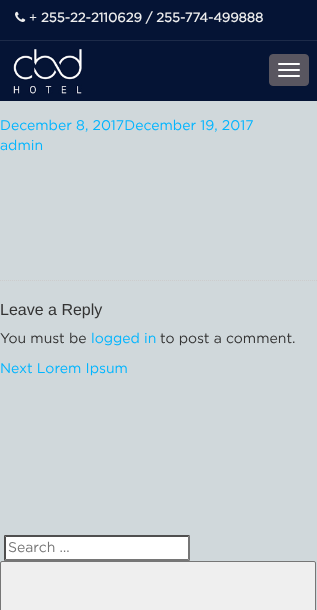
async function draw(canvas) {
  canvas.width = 317
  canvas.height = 610
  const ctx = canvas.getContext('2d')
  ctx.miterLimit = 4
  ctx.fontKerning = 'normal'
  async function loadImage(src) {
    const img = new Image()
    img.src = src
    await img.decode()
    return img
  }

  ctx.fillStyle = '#d0d8db'
  ctx.fillRect(0, 0, 317, 610)
  ctx.fillStyle = '#051435'
  ctx.fillRect(0, 0, 317, 40)
  ctx.fillStyle = '#1d2b49'
  ctx.fillRect(0, 40, 317, 1)
  ctx.drawImage(await loadImage('image0.png'), 15, 11, 11, 11)
  ctx.font = '13px Gotham'
  ctx.fillStyle = '#eee'
  ctx.fillText('+', 29, 22)
  ctx.font = 'bold 13px Gotham'
  ctx.fillText('255-22-2110629 / 255-774-499888', 41, 22)
  ctx.fillStyle = '#051435'
  ctx.fillRect(0, 41, 317, 60)
  ctx.drawImage(await loadImage('image1.png'), 13, 49, 69, 45)
  ctx.fillStyle = '#595660'
  ctx.beginPath()
  ctx.roundRect(269.5, 54.5, 39, 31, 3.5)
  ctx.fill()
  ctx.strokeStyle = '#595660'
  ctx.stroke()
  ctx.fillStyle = '#fff'
  ctx.beginPath()
  ctx.roundRect(278, 63, 22, 2, 1)
  ctx.fill()
  ctx.beginPath()
  ctx.roundRect(278, 69, 22, 2, 1)
  ctx.fill()
  ctx.beginPath()
  ctx.roundRect(278, 75, 22, 2, 1)
  ctx.fill()
  ctx.beginPath()
  ctx.moveTo(0, 280.5)
  ctx.lineTo(317, 280.5)
  ctx.strokeStyle = '#ccc'
  ctx.setLineDash([1, 1])
  ctx.stroke()
  ctx.font = '14px Gotham'
  ctx.fillStyle = '#00b5ff'
  ctx.fillText('December 8, 2017December 19, 2017', 0, 130)
  ctx.fillText('admin', 0, 150)
  ctx.font = '16px Liberation Sans'
  ctx.fillStyle = '#333'
  ctx.fillText('Leave a Reply', 0, 315)
  ctx.font = '14px Gotham'
  ctx.fillText('You must be', 0, 343)
  ctx.fillStyle = '#00b5ff'
  ctx.fillText('logged in', 91, 343)
  ctx.fillStyle = '#333'
  ctx.fillText('to post a comment.', 160, 343)
  ctx.fillStyle = '#00b5ff'
  ctx.fillText('Next Lorem Ipsum', 0, 373)
  ctx.fillStyle = '#fff'
  ctx.fillRect(4, 535, 186, 26)
  ctx.fillStyle = '#4f4f4f'
  ctx.beginPath()
  ctx.moveTo(4, 535)
  ctx.lineTo(190, 535)
  ctx.lineTo(188, 537)
  ctx.lineTo(6, 537)
  ctx.closePath()
  ctx.fill()
  ctx.fillStyle = '#767676'
  ctx.beginPath()
  ctx.moveTo(190, 535)
  ctx.lineTo(190, 561)
  ctx.lineTo(188, 559)
  ctx.lineTo(188, 537)
  ctx.closePath()
  ctx.fill()
  ctx.beginPath()
  ctx.moveTo(190, 561)
  ctx.lineTo(4, 561)
  ctx.lineTo(6, 559)
  ctx.lineTo(188, 559)
  ctx.closePath()
  ctx.fill()
  ctx.fillStyle = '#4f4f4f'
  ctx.beginPath()
  ctx.moveTo(4, 561)
  ctx.lineTo(4, 535)
  ctx.lineTo(6, 537)
  ctx.lineTo(6, 559)
  ctx.closePath()
  ctx.fill()
  ctx.fillStyle = '#757575'
  ctx.fillText('Search …', 8, 552)
  ctx.fillStyle = '#efefef'
  ctx.beginPath()
  ctx.roundRect(0.5, 561.5, 315, 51, 1.5)
  ctx.fill()
  ctx.strokeStyle = '#767676'
  ctx.setLineDash([])
  ctx.stroke()
}

draw(document.querySelector('canvas'))
